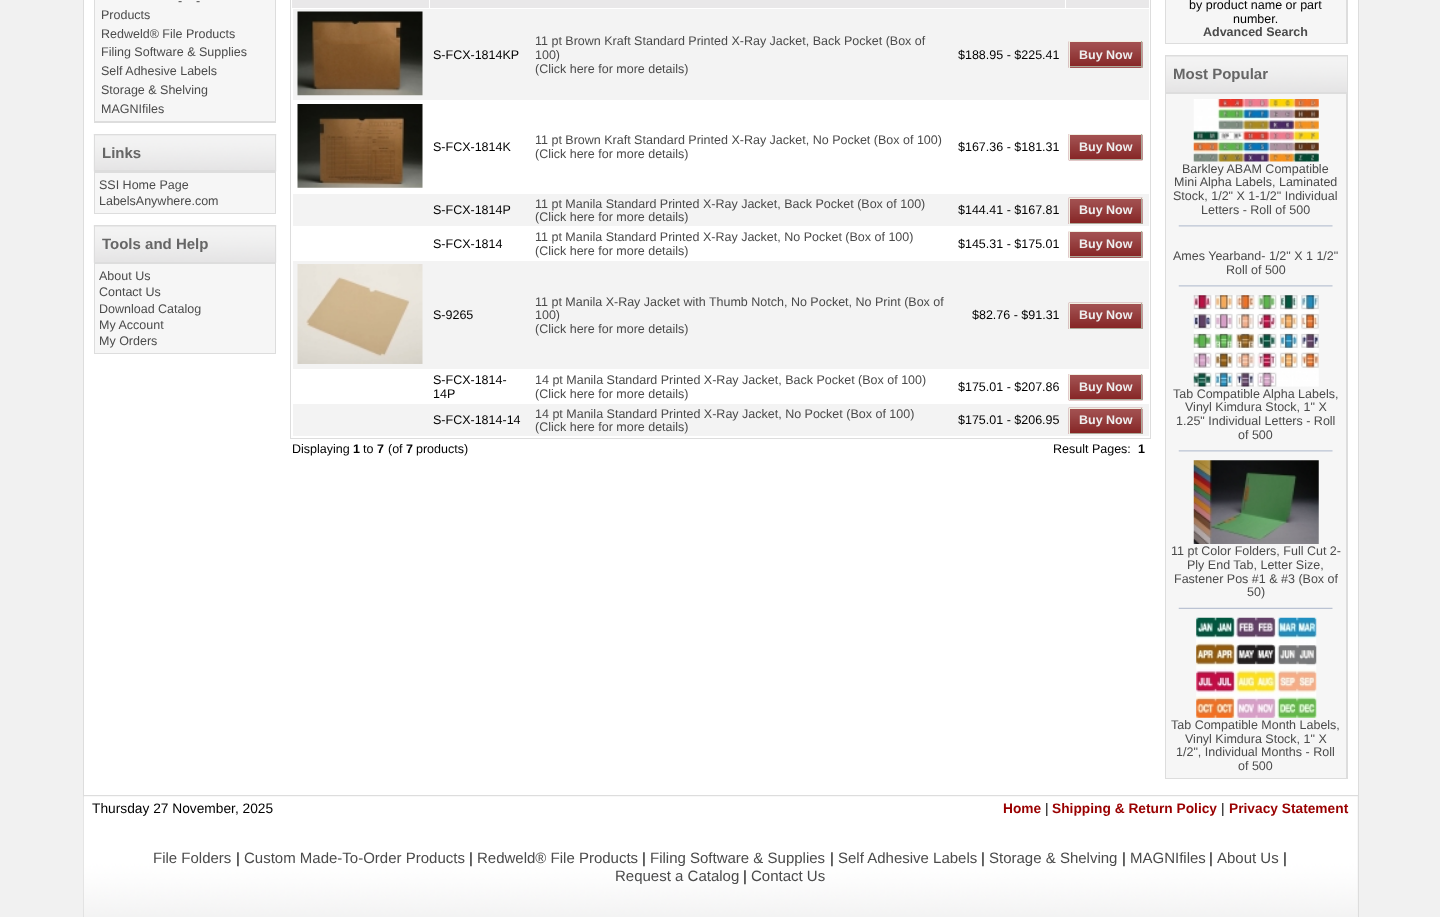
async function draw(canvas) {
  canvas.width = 1440
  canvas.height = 917
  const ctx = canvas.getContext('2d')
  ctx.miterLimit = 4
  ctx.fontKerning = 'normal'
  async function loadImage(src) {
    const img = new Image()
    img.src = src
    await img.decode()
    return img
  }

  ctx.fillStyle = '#f1f1f1'
  ctx.fillRect(0, 0, 1440, 917)
  ctx.fillStyle = '#fff'
  ctx.fillRect(84, 0, 1274, 795)
  ctx.strokeStyle = '#ddd'
  ctx.strokeRect(83.5, -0.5, 1275, 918)
  ctx.fillStyle = '#ddd'
  ctx.fillRect(94, 0, 182, 123)
  ctx.fillStyle = '#f6f6f6'
  ctx.fillRect(95, 0, 180, 121)
  ctx.font = '12.5px Liberation Sans'
  ctx.fillStyle = '#4b4b4b'
  ctx.fillText('-', 178, 5)
  ctx.fillText('-', 196, 5)
  ctx.fillText('Products', 101, 19)
  ctx.fillText('Redweld® File Products', 101, 38)
  ctx.fillText('Filing Software & Supplies', 101, 56)
  ctx.fillText('Self Adhesive Labels', 101, 75)
  ctx.fillText('Storage & Shelving', 101, 94)
  ctx.fillText('MAGNIfiles', 101, 113)
  ctx.drawImage(await loadImage('image0.png'), 93, 134, 184, 38)
  ctx.strokeRect(94.5, 134.5, 181, 36)
  ctx.font = 'bold 15px Liberation Sans'
  ctx.fillStyle = '#666'
  ctx.fillText('Links', 102, 158)
  ctx.fillStyle = '#ddd'
  ctx.fillRect(94, 171, 182, 43)
  ctx.fillStyle = '#f6f6f6'
  ctx.fillRect(95, 173, 180, 40)
  ctx.font = '12.5px Liberation Sans'
  ctx.fillStyle = '#4b4b4b'
  ctx.fillText('SSI Home Page', 99, 189)
  ctx.fillText('LabelsAnywhere.com', 99, 205)
  ctx.drawImage(await loadImage('image1.png'), 93, 225, 184, 38)
  ctx.strokeRect(94.5, 225.5, 181, 37)
  ctx.font = 'bold 15px Liberation Sans'
  ctx.fillStyle = '#666'
  ctx.fillText('Tools and Help', 102, 249)
  ctx.fillStyle = '#ddd'
  ctx.fillRect(94, 263, 182, 91)
  ctx.fillStyle = '#f6f6f6'
  ctx.fillRect(95, 264, 180, 89)
  ctx.font = '12.5px Liberation Sans'
  ctx.fillStyle = '#4b4b4b'
  ctx.fillText('About Us', 99, 280)
  ctx.fillText('Contact Us', 99, 296)
  ctx.fillText('Download Catalog', 99, 313)
  ctx.fillText('My Account', 99, 329)
  ctx.fillText('My Orders', 99, 345)
  ctx.strokeRect(290.5, -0.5, 860, 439)
  ctx.fillStyle = '#e9e8e9'
  ctx.fillRect(292, 0, 137, 8)
  ctx.fillRect(430, 0, 635, 8)
  ctx.fillRect(1066, 0, 83, 8)
  ctx.fillStyle = '#f3f3f3'
  ctx.fillRect(293, 9, 856, 91)
  ctx.drawImage(await loadImage('image2.png'), 297, 11, 126, 85)
  ctx.fillStyle = '#000'
  ctx.fillText('S-FCX-1814KP', 433, 59)
  ctx.fillStyle = '#4b4b4b'
  ctx.fillText('11 pt Brown Kraft Standard Printed X-Ray Jacket, Back Pocket (Box of', 535, 45)
  ctx.fillText('100)', 535, 59)
  ctx.fillText('(Click here for more details)', 535, 73)
  ctx.fillStyle = '#000'
  ctx.fillText('$188.95 - $225.41', 958, 59)
  ctx.drawImage(await loadImage('image3.png'), 1068, 41, 75, 27)
  ctx.font = 'bold 12.5px Liberation Sans'
  ctx.fillStyle = '#eee'
  ctx.fillText('Buy Now', 1079, 59)
  ctx.fillStyle = '#f1efe2'
  ctx.fillRect(1069, 41, 74, 1)
  ctx.fillStyle = '#aca899'
  ctx.fillRect(1141, 41, 1, 27)
  ctx.fillRect(1069, 66, 74, 1)
  ctx.fillStyle = '#f1efe2'
  ctx.fillRect(1069, 41, 1, 27)
  ctx.drawImage(await loadImage('image4.png'), 297, 104, 126, 84)
  ctx.font = '12.5px Liberation Sans'
  ctx.fillStyle = '#000'
  ctx.fillText('S-FCX-1814K', 433, 151)
  ctx.fillStyle = '#4b4b4b'
  ctx.fillText('11 pt Brown Kraft Standard Printed X-Ray Jacket, No Pocket (Box of 100)', 535, 144)
  ctx.fillText('(Click here for more details)', 535, 158)
  ctx.fillStyle = '#000'
  ctx.fillText('$167.36 - $181.31', 958, 151)
  ctx.fillStyle = '#f1f1f1'
  ctx.fillRect(1142, 135, 1, 24)
  ctx.drawImage(await loadImage('image5.png'), 1068, 134, 75, 27)
  ctx.font = 'bold 12.5px Liberation Sans'
  ctx.fillStyle = '#eee'
  ctx.fillText('Buy Now', 1079, 151)
  ctx.fillStyle = '#f1efe2'
  ctx.fillRect(1069, 134, 74, 1)
  ctx.fillStyle = '#aca899'
  ctx.fillRect(1141, 134, 1, 26)
  ctx.fillRect(1069, 159, 74, 1)
  ctx.fillStyle = '#f1efe2'
  ctx.fillRect(1069, 134, 1, 26)
  ctx.fillStyle = '#f3f3f3'
  ctx.fillRect(293, 194, 856, 32)
  ctx.font = '12.5px Liberation Sans'
  ctx.fillStyle = '#000'
  ctx.fillText('S-FCX-1814P', 433, 214)
  ctx.fillStyle = '#4b4b4b'
  ctx.fillText('11 pt Manila Standard Printed X-Ray Jacket, Back Pocket (Box of 100)', 535, 208)
  ctx.fillText('(Click here for more details)', 535, 221)
  ctx.fillStyle = '#000'
  ctx.fillText('$144.41 - $167.81', 958, 214)
  ctx.drawImage(await loadImage('image6.png'), 1068, 197, 75, 27)
  ctx.font = 'bold 12.5px Liberation Sans'
  ctx.fillStyle = '#eee'
  ctx.fillText('Buy Now', 1079, 214)
  ctx.fillStyle = '#f1efe2'
  ctx.fillRect(1069, 198, 74, 1)
  ctx.fillStyle = '#aca899'
  ctx.fillRect(1141, 198, 1, 26)
  ctx.fillRect(1069, 223, 74, 1)
  ctx.fillStyle = '#f1efe2'
  ctx.fillRect(1069, 198, 1, 26)
  ctx.font = '12.5px Liberation Sans'
  ctx.fillStyle = '#000'
  ctx.fillText('S-FCX-1814', 433, 248)
  ctx.fillStyle = '#4b4b4b'
  ctx.fillText('11 pt Manila Standard Printed X-Ray Jacket, No Pocket (Box of 100)', 535, 241)
  ctx.fillText('(Click here for more details)', 535, 255)
  ctx.fillStyle = '#000'
  ctx.fillText('$145.31 - $175.01', 958, 248)
  ctx.fillStyle = '#f1f1f1'
  ctx.fillRect(1070, 232, 73, 26)
  ctx.drawImage(await loadImage('image7.png'), 1068, 231, 75, 27)
  ctx.font = 'bold 12.5px Liberation Sans'
  ctx.fillStyle = '#eee'
  ctx.fillText('Buy Now', 1079, 248)
  ctx.fillStyle = '#f1efe2'
  ctx.fillRect(1069, 231, 74, 1)
  ctx.fillStyle = '#aca899'
  ctx.fillRect(1141, 231, 1, 27)
  ctx.fillRect(1069, 256, 74, 1)
  ctx.fillStyle = '#f1efe2'
  ctx.fillRect(1069, 231, 1, 27)
  ctx.fillStyle = '#f3f3f3'
  ctx.fillRect(293, 261, 856, 108)
  ctx.drawImage(await loadImage('image8.png'), 297, 264, 126, 100)
  ctx.font = '12.5px Liberation Sans'
  ctx.fillStyle = '#000'
  ctx.fillText('S-9265', 433, 319)
  ctx.fillStyle = '#4b4b4b'
  ctx.fillText('11 pt Manila X-Ray Jacket with Thumb Notch, No Pocket, No Print (Box of', 535, 306)
  ctx.fillText('100)', 535, 319)
  ctx.fillText('(Click here for more details)', 535, 333)
  ctx.fillStyle = '#000'
  ctx.fillText('$82.76 - $91.31', 972, 319)
  ctx.drawImage(await loadImage('image9.png'), 1068, 302, 75, 27)
  ctx.font = 'bold 12.5px Liberation Sans'
  ctx.fillStyle = '#eee'
  ctx.fillText('Buy Now', 1079, 319)
  ctx.fillStyle = '#f1efe2'
  ctx.fillRect(1069, 303, 74, 1)
  ctx.fillStyle = '#aca899'
  ctx.fillRect(1141, 303, 1, 26)
  ctx.fillRect(1069, 328, 74, 1)
  ctx.fillStyle = '#f1efe2'
  ctx.fillRect(1069, 303, 1, 26)
  ctx.font = '12.5px Liberation Sans'
  ctx.fillStyle = '#000'
  ctx.fillText('S-FCX-1814-', 433, 384)
  ctx.fillText('14P', 433, 398)
  ctx.fillStyle = '#4b4b4b'
  ctx.fillText('14 pt Manila Standard Printed X-Ray Jacket, Back Pocket (Box of 100)', 535, 384)
  ctx.fillText('(Click here for more details)', 535, 398)
  ctx.fillStyle = '#000'
  ctx.fillText('$175.01 - $207.86', 958, 391)
  ctx.fillStyle = '#f1f1f1'
  ctx.fillRect(1142, 375, 1, 24)
  ctx.drawImage(await loadImage('image5.png'), 1068, 374, 75, 27)
  ctx.font = 'bold 12.5px Liberation Sans'
  ctx.fillStyle = '#eee'
  ctx.fillText('Buy Now', 1079, 391)
  ctx.fillStyle = '#f1efe2'
  ctx.fillRect(1069, 374, 74, 1)
  ctx.fillStyle = '#aca899'
  ctx.fillRect(1141, 374, 1, 26)
  ctx.fillRect(1069, 399, 74, 1)
  ctx.fillStyle = '#f1efe2'
  ctx.fillRect(1069, 374, 1, 26)
  ctx.fillStyle = '#f3f3f3'
  ctx.fillRect(293, 404, 856, 32)
  ctx.font = '12.5px Liberation Sans'
  ctx.fillStyle = '#000'
  ctx.fillText('S-FCX-1814-14', 433, 424)
  ctx.fillStyle = '#4b4b4b'
  ctx.fillText('14 pt Manila Standard Printed X-Ray Jacket, No Pocket (Box of 100)', 535, 418)
  ctx.fillText('(Click here for more details)', 535, 431)
  ctx.fillStyle = '#000'
  ctx.fillText('$175.01 - $206.95', 958, 424)
  ctx.drawImage(await loadImage('image6.png'), 1068, 407, 75, 27)
  ctx.font = 'bold 12.5px Liberation Sans'
  ctx.fillStyle = '#eee'
  ctx.fillText('Buy Now', 1079, 424)
  ctx.fillStyle = '#f1efe2'
  ctx.fillRect(1069, 408, 74, 1)
  ctx.fillStyle = '#aca899'
  ctx.fillRect(1141, 408, 1, 26)
  ctx.fillRect(1069, 433, 74, 1)
  ctx.fillStyle = '#f1efe2'
  ctx.fillRect(1069, 408, 1, 26)
  ctx.font = '12.5px Liberation Sans'
  ctx.fillStyle = '#000'
  ctx.fillText('Displaying', 292, 453)
  ctx.font = 'bold 12.5px Liberation Sans'
  ctx.fillText('1', 353, 453)
  ctx.font = '12.5px Liberation Sans'
  ctx.fillText('to', 363, 453)
  ctx.font = 'bold 12.5px Liberation Sans'
  ctx.fillText('7', 377, 453)
  ctx.font = '12.5px Liberation Sans'
  ctx.fillText('(of', 388, 453)
  ctx.font = 'bold 12.5px Liberation Sans'
  ctx.fillText('7', 406, 453)
  ctx.font = '12.5px Liberation Sans'
  ctx.fillText('products)', 416, 453)
  ctx.fillText('Result Pages:', 1053, 453)
  ctx.font = 'bold 12.5px Liberation Sans'
  ctx.fillText('1', 1138, 453)
  ctx.fillStyle = '#ddd'
  ctx.fillRect(1165, 0, 183, 44)
  ctx.fillStyle = '#f6f6f6'
  ctx.fillRect(1166, 0, 180, 43)
  ctx.font = '12.5px Liberation Sans'
  ctx.fillStyle = '#000'
  ctx.fillText('by product name or part', 1189, 9)
  ctx.fillText('number.', 1233, 23)
  ctx.font = 'bold 12.5px Liberation Sans'
  ctx.fillStyle = '#4b4b4b'
  ctx.fillText('Advanced Search', 1203, 36)
  ctx.drawImage(await loadImage('image10.png'), 1166, 56, 181, 36)
  ctx.strokeRect(1165.5, 55.5, 182, 37)
  ctx.font = 'bold 15px Liberation Sans'
  ctx.fillStyle = '#666'
  ctx.fillText('Most Popular', 1173, 79)
  ctx.fillStyle = '#ddd'
  ctx.fillRect(1165, 93, 183, 686)
  ctx.fillStyle = '#f6f6f6'
  ctx.fillRect(1166, 94, 180, 684)
  ctx.drawImage(await loadImage('image11.png'), 1193, 99, 126, 63)
  ctx.font = '12.5px Liberation Sans'
  ctx.fillStyle = '#4b4b4b'
  ctx.fillText('Barkley ABAM Compatible', 1182, 173)
  ctx.fillText('Mini Alpha Labels, Laminated', 1174, 186)
  ctx.fillText('Stock, 1/2" X 1-1/2" Individual', 1173, 200)
  ctx.fillText('Letters - Roll of 500', 1201, 214)
  ctx.drawImage(await loadImage('image12.png'), 1178, 225, 155, 2)
  ctx.fillText('Ames Yearband- 1/2" X 1 1/2"', 1173, 260)
  ctx.fillText('Roll of 500', 1226, 274)
  ctx.drawImage(await loadImage('image12.png'), 1178, 285, 155, 2)
  ctx.drawImage(await loadImage('image13.png'), 1193, 295, 126, 92)
  ctx.fillText('Tab Compatible Alpha Labels,', 1173, 398)
  ctx.fillText('Vinyl Kimdura Stock, 1" X', 1185, 411)
  ctx.fillText('1.25" Individual Letters - Roll', 1176, 425)
  ctx.fillText('of 500', 1238, 439)
  ctx.drawImage(await loadImage('image12.png'), 1178, 450, 155, 2)
  ctx.drawImage(await loadImage('image14.png'), 1193, 460, 126, 84)
  ctx.fillText('11 pt Color Folders, Full Cut 2-', 1171, 555)
  ctx.fillText('Ply End Tab, Letter Size,', 1187, 569)
  ctx.fillText('Fastener Pos #1 & #3 (Box of', 1174, 583)
  ctx.fillText('50)', 1247, 596)
  ctx.drawImage(await loadImage('image15.png'), 1178, 607, 155, 2)
  ctx.drawImage(await loadImage('image16.png'), 1196, 617, 121, 101)
  ctx.fillText('Tab Compatible Month Labels,', 1171, 729)
  ctx.fillText('Vinyl Kimdura Stock, 1" X', 1185, 743)
  ctx.fillText('1/2", Individual Months - Roll', 1176, 756)
  ctx.fillText('of 500', 1238, 770)
  ctx.drawImage(await loadImage('image17.png'), 83, 796, 1275, 121)
  ctx.fillStyle = '#ddd'
  ctx.fillRect(84, 795, 1274, 1)
  ctx.font = '13.75px Liberation Sans'
  ctx.fillStyle = '#000'
  ctx.fillText('Thursday 27 November, 2025', 92, 813)
  ctx.font = 'bold 13.75px Liberation Sans'
  ctx.fillStyle = '#900'
  ctx.fillText('Home', 1003, 813)
  ctx.font = '13.75px Liberation Sans'
  ctx.fillStyle = '#000'
  ctx.fillText('|', 1045, 813)
  ctx.font = 'bold 13.75px Liberation Sans'
  ctx.fillStyle = '#900'
  ctx.fillText('Shipping & Return Policy', 1052, 813)
  ctx.font = '13.75px Liberation Sans'
  ctx.fillStyle = '#000'
  ctx.fillText('|', 1221, 813)
  ctx.font = 'bold 13.75px Liberation Sans'
  ctx.fillStyle = '#900'
  ctx.fillText('Privacy Statement', 1229, 813)
  ctx.font = '15px Liberation Sans'
  ctx.fillStyle = '#4b4b4b'
  ctx.fillText('File Folders', 153, 863)
  ctx.fillStyle = '#000'
  ctx.fillText('|', 236, 863)
  ctx.fillStyle = '#4b4b4b'
  ctx.fillText('Custom Made-To-Order Products', 244, 863)
  ctx.fillStyle = '#000'
  ctx.fillText('|', 469, 863)
  ctx.fillStyle = '#4b4b4b'
  ctx.fillText('Redweld® File Products', 477, 863)
  ctx.fillStyle = '#000'
  ctx.fillText('|', 642, 863)
  ctx.fillStyle = '#4b4b4b'
  ctx.fillText('Filing Software & Supplies', 650, 863)
  ctx.fillStyle = '#000'
  ctx.fillText('|', 830, 863)
  ctx.fillStyle = '#4b4b4b'
  ctx.fillText('Self Adhesive Labels', 838, 863)
  ctx.fillStyle = '#000'
  ctx.fillText('|', 981, 863)
  ctx.fillStyle = '#4b4b4b'
  ctx.fillText('Storage & Shelving', 989, 863)
  ctx.fillStyle = '#000'
  ctx.fillText('|', 1122, 863)
  ctx.fillStyle = '#4b4b4b'
  ctx.fillText('MAGNIfiles', 1130, 863)
  ctx.fillStyle = '#000'
  ctx.fillText('|', 1209, 863)
  ctx.fillStyle = '#4b4b4b'
  ctx.fillText('About Us', 1217, 863)
  ctx.fillStyle = '#000'
  ctx.fillText('|', 1283, 863)
  ctx.fillStyle = '#4b4b4b'
  ctx.fillText('Request a Catalog', 615, 881)
  ctx.fillStyle = '#000'
  ctx.fillText('|', 743, 881)
  ctx.fillStyle = '#4b4b4b'
  ctx.fillText('Contact Us', 751, 881)
}

draw(document.querySelector('canvas'))
